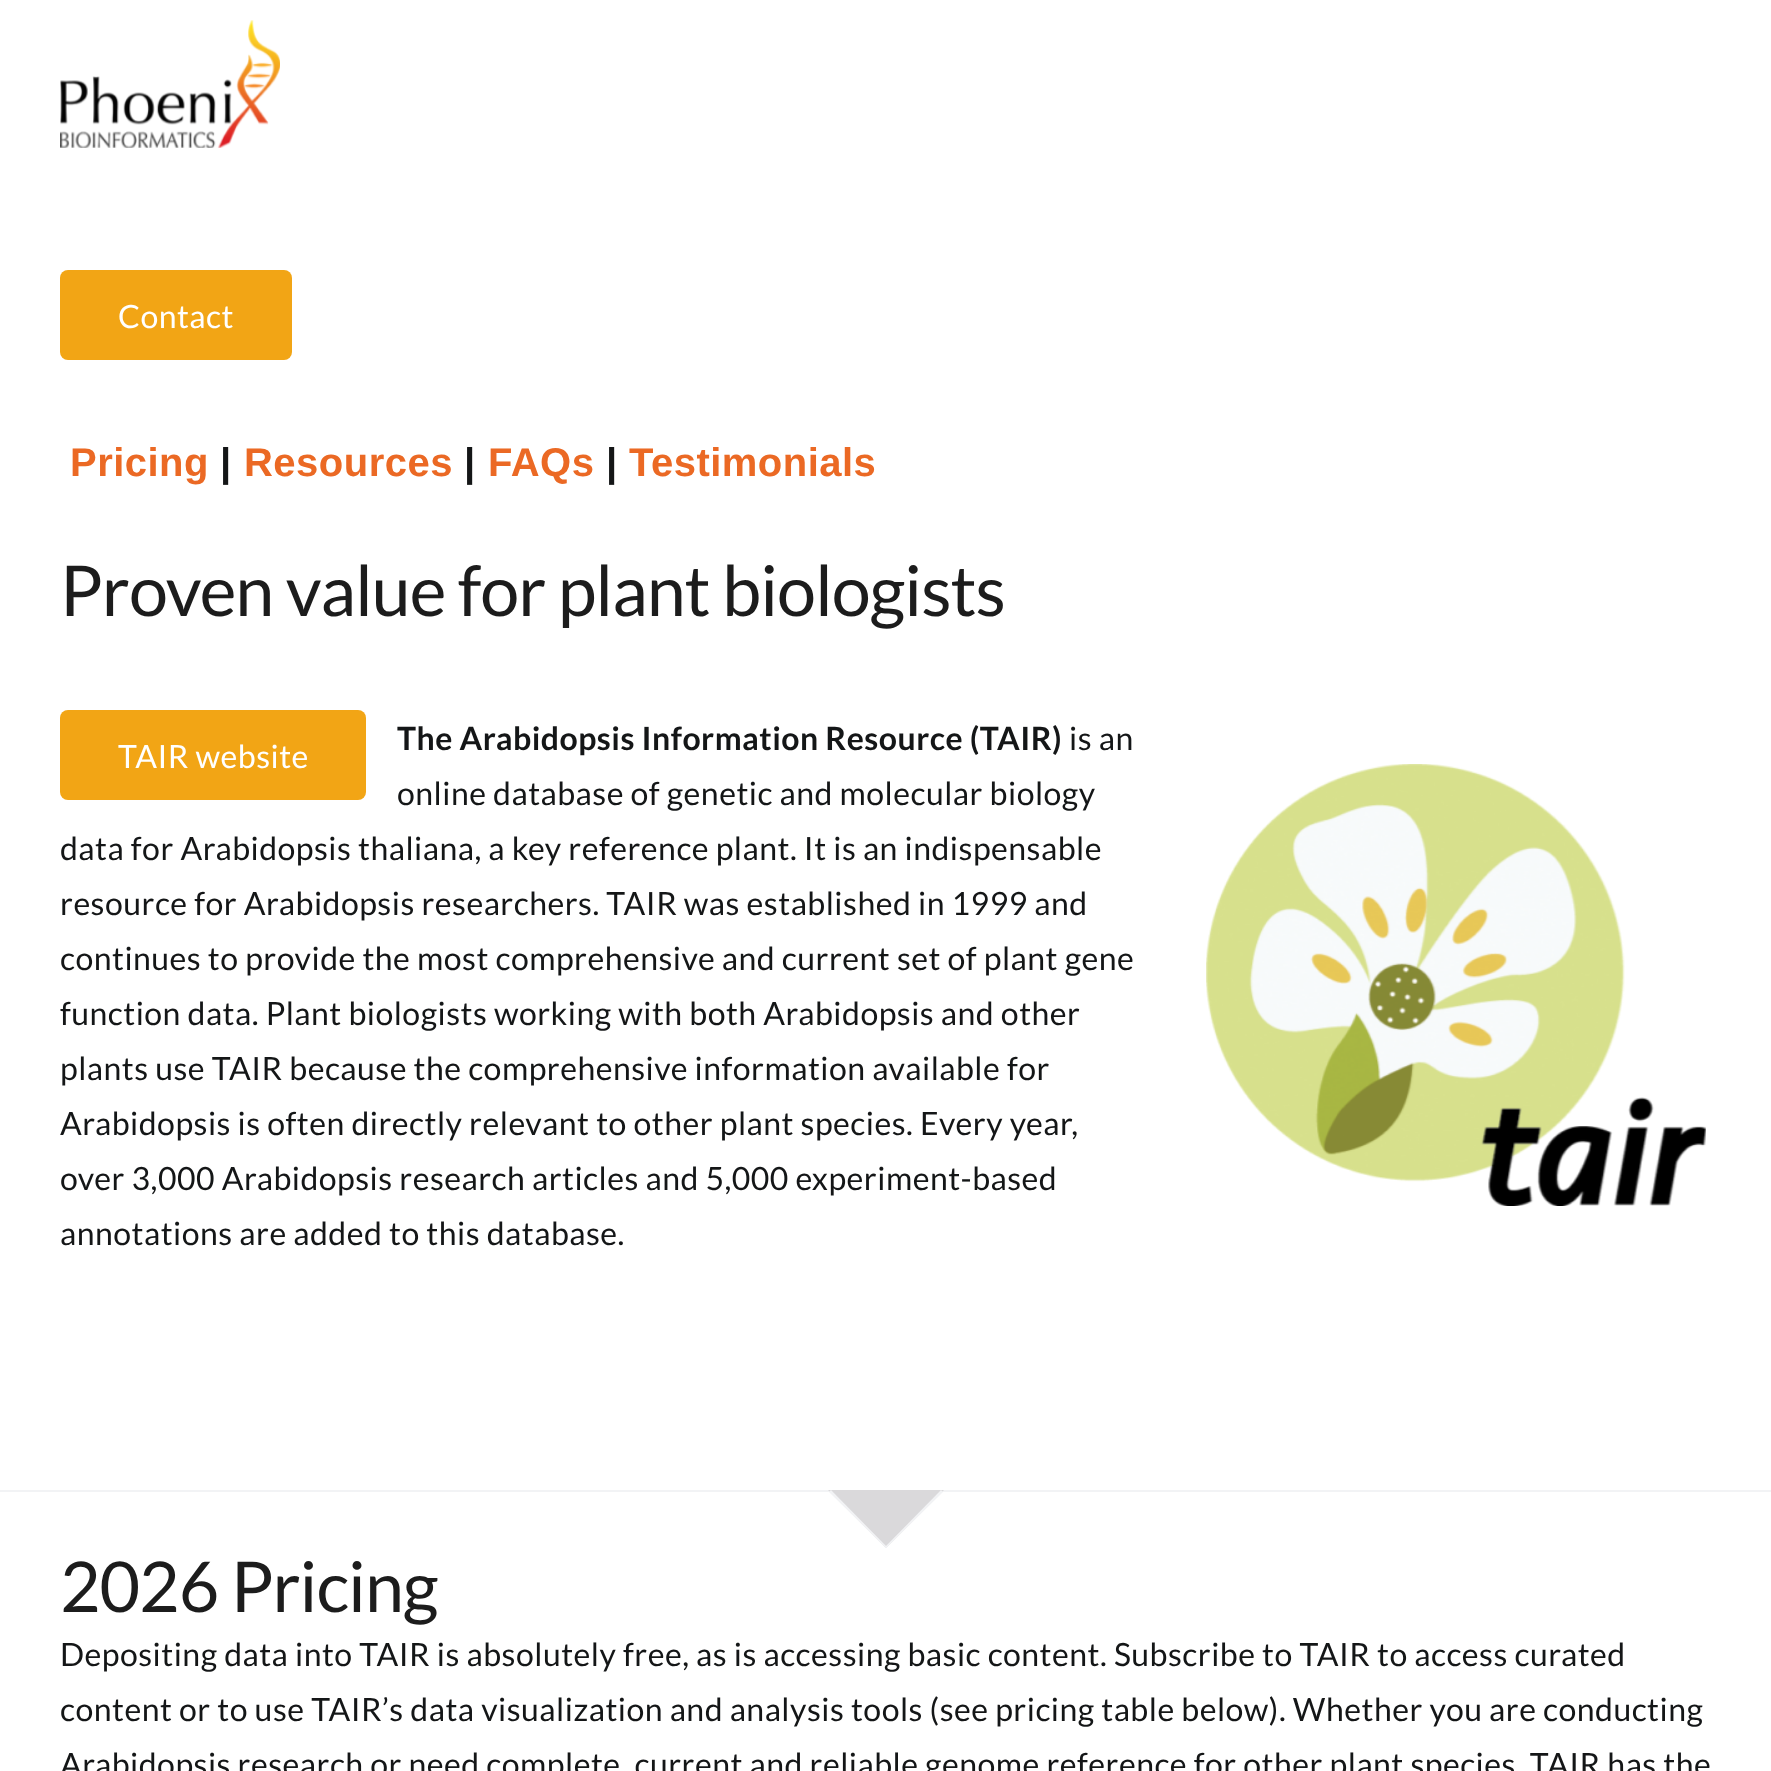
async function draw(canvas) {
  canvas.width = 1771
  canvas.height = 1771
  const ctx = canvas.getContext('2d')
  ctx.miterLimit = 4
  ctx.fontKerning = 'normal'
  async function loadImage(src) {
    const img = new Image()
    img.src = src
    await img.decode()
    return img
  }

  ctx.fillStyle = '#fff'
  ctx.fillRect(0, 0, 1771, 1771)
  ctx.drawImage(await loadImage('image0.png'), 60, 20, 220, 128)
  ctx.fillStyle = '#f2a515'
  ctx.beginPath()
  ctx.roundRect(60, 270, 232, 90, 8)
  ctx.fill()
  ctx.letterSpacing = '0.48px'
  ctx.font = '32px Lato'
  ctx.fillStyle = '#fff'
  ctx.fillText('Contact', 118, 328)
  ctx.font = 'bold 40px Liberation Sans'
  ctx.fillStyle = '#eb6924'
  ctx.fillText('Pricing', 70, 476)
  ctx.fillStyle = '#141617'
  ctx.fillText('|', 220, 476)
  ctx.fillStyle = '#eb6924'
  ctx.fillText('Resources', 244, 476)
  ctx.fillStyle = '#141617'
  ctx.fillText('|', 464, 476)
  ctx.fillStyle = '#eb6924'
  ctx.fillText('FAQs', 488, 476)
  ctx.fillStyle = '#141617'
  ctx.fillText('|', 606, 476)
  ctx.fillStyle = '#eb6924'
  ctx.fillText('Testimonials', 629, 476)
  ctx.letterSpacing = '-1.05px'
  ctx.font = '70px Lato'
  ctx.fillStyle = '#1c1c1c'
  ctx.fillText('Proven value for plant biologists', 60, 616)
  ctx.letterSpacing = '0.48px'
  ctx.font = 'bold 32px Lato'
  ctx.fillStyle = '#141617'
  ctx.fillText('The Arabidopsis Information Resource (TAIR)', 397, 750)
  ctx.font = '32px Lato'
  ctx.fillText('is an', 1069, 750)
  ctx.fillStyle = '#f2a515'
  ctx.beginPath()
  ctx.roundRect(60, 710, 306, 90, 8)
  ctx.fill()
  ctx.fillStyle = '#fff'
  ctx.fillText('TAIR website', 118, 768)
  ctx.fillStyle = '#141617'
  ctx.fillText('online database of genetic and molecular biology', 397, 805)
  ctx.fillText('data for Arabidopsis thaliana, a key reference plant. It is an indispensable', 60, 860)
  ctx.fillText('resource for Arabidopsis researchers. TAIR was established in 1999 and', 60, 915)
  ctx.fillText('continues to provide the most comprehensive and current set of plant gene', 60, 970)
  ctx.fillText('function data. Plant biologists working with both Arabidopsis and other', 60, 1025)
  ctx.fillText('plants use TAIR because the comprehensive information available for', 60, 1080)
  ctx.fillText('Arabidopsis is often directly relevant to other plant species. Every year,', 60, 1135)
  ctx.fillText('over 3,000 Arabidopsis research articles and 5,000 experiment-based', 60, 1190)
  ctx.fillText('annotations are added to this database.', 60, 1245)
  ctx.drawImage(await loadImage('image1.png'), 1206, 764, 500, 442)
  ctx.fillStyle = '#f2f3f5'
  ctx.fillRect(0, 1490, 1771, 2)
  ctx.fillStyle = '#dad9db'
  ctx.beginPath()
  ctx.moveTo(828, 1490)
  ctx.lineTo(944, 1490)
  ctx.lineTo(886, 1548)
  ctx.closePath()
  ctx.fill()
  ctx.fillStyle = '#f2f3f5'
  ctx.beginPath()
  ctx.moveTo(885, 1547)
  ctx.lineTo(941, 1490)
  ctx.lineTo(943, 1492)
  ctx.lineTo(886, 1548)
  ctx.closePath()
  ctx.fill()
  ctx.beginPath()
  ctx.moveTo(829, 1492)
  ctx.lineTo(831, 1490)
  ctx.lineTo(887, 1547)
  ctx.lineTo(886, 1548)
  ctx.closePath()
  ctx.fill()
  ctx.letterSpacing = '-1.05px'
  ctx.font = '70px Lato'
  ctx.fillStyle = '#1c1c1c'
  ctx.fillText('2026 Pricing', 60, 1612)
  ctx.letterSpacing = '0.48px'
  ctx.font = '32px Lato'
  ctx.fillStyle = '#141617'
  ctx.fillText('Depositing data into TAIR is absolutely free, as is accessing basic content. Subscribe to TAIR to access curated', 60, 1666)
  ctx.fillText('content or to use TAIR’s data visualization and analysis tools (see pricing table below). Whether you are conducting', 60, 1721)
  ctx.fillText('Arabidopsis research or need complete, current and reliable genome reference for other plant species, TAIR has the', 60, 1776)
}

draw(document.querySelector('canvas'))
